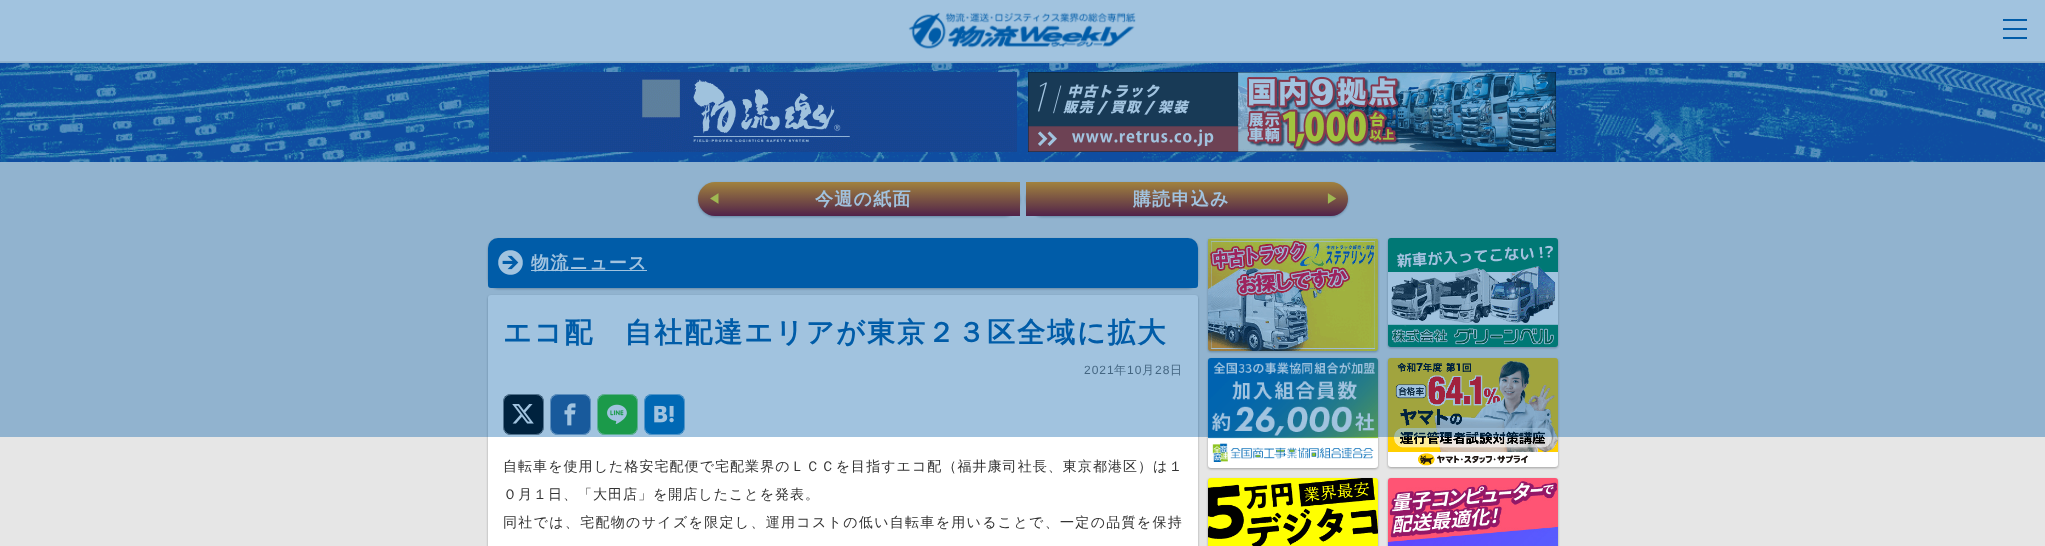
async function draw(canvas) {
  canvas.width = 2045
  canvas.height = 546
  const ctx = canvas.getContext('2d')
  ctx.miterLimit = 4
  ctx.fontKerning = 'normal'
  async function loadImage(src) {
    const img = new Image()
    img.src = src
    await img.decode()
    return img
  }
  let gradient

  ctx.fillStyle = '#005ca8'
  ctx.fillRect(0, 0, 2045, 546)
  ctx.fillStyle = '#fff'
  ctx.fillRect(0, 0, 2045, 61)
  ctx.fillStyle = '#ddd'
  ctx.fillRect(0, 62, 2045, 1)
  ctx.fillStyle = '#e6e6e6'
  ctx.fillRect(0, 61, 2045, 1)
  ctx.drawImage(await loadImage('image0.png'), 908, 12, 228, 37)
  ctx.fillStyle = '#005ca8'
  ctx.fillRect(2003, 19, 24, 2)
  ctx.fillRect(2003, 28, 24, 2)
  ctx.fillRect(2003, 37, 24, 2)
  ctx.drawImage(await loadImage('image1.png'), 0, 63, 2045, 99)
  ctx.drawImage(await loadImage('image2.png'), 489, 72, 528, 80)
  ctx.drawImage(await loadImage('image3.png'), 1028, 72, 528, 80)
  ctx.fillStyle = '#e6e6e6'
  ctx.fillRect(0, 162, 2045, 384)
  ctx.fillStyle = '#0000004d'
  ctx.filter = 'blur(1px)'
  ctx.beginPath()
  ctx.roundRect(698, 183, 322, 34, 17)
  ctx.fill()
  ctx.filter = 'none'
  gradient = ctx.createLinearGradient(859, 182, 859, 216)
  gradient.addColorStop(0, '#f90')
  gradient.addColorStop(1, '#810214')
  ctx.fillStyle = gradient
  ctx.beginPath()
  ctx.roundRect(698, 182, 322, 34, [17, 0, 0, 17])
  ctx.fill()
  ctx.letterSpacing = '1px'
  ctx.font = 'bold 12px WenQuanYi Zen Hei'
  ctx.fillStyle = '#fcee21'
  ctx.fillText('◀', 708, 203)
  ctx.letterSpacing = '1.25px'
  ctx.font = 'bold 18px WenQuanYi Zen Hei'
  ctx.fillStyle = '#fff'
  ctx.fillText('今週の紙面', 815, 205)
  ctx.fillStyle = '#0000004d'
  ctx.filter = 'blur(1px)'
  ctx.beginPath()
  ctx.roundRect(1026, 183, 322, 34, 17)
  ctx.fill()
  ctx.filter = 'none'
  gradient = ctx.createLinearGradient(1187, 182, 1187, 216)
  gradient.addColorStop(0, '#f90')
  gradient.addColorStop(1, '#810214')
  ctx.fillStyle = gradient
  ctx.beginPath()
  ctx.roundRect(1026, 182, 322, 34, [0, 17, 17, 0])
  ctx.fill()
  ctx.fillStyle = '#fff'
  ctx.fillText('購読申込み', 1133, 205)
  ctx.letterSpacing = '1px'
  ctx.font = 'bold 12px WenQuanYi Zen Hei'
  ctx.fillStyle = '#fcee21'
  ctx.fillText('▶', 1326, 203)
  ctx.fillStyle = '#0000004d'
  ctx.filter = 'blur(1px)'
  ctx.beginPath()
  ctx.roundRect(488, 239, 710, 50, 10)
  ctx.fill()
  ctx.filter = 'none'
  ctx.fillStyle = '#005ca8'
  ctx.beginPath()
  ctx.roundRect(488, 238, 710, 50, [10, 10, 3, 3])
  ctx.fill()
  ctx.drawImage(await loadImage('image4.png'), 498, 250, 25, 25)
  ctx.fillStyle = '#fff'
  ctx.fillRect(531, 270, 116, 1)
  ctx.letterSpacing = '1.25px'
  ctx.font = 'bold 18px WenQuanYi Zen Hei'
  ctx.fillText('物流ニュース', 531, 269)
  ctx.fillStyle = '#0000004d'
  ctx.filter = 'blur(1px)'
  ctx.beginPath()
  ctx.roundRect(488, 296, 710, 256, 3)
  ctx.fill()
  ctx.filter = 'none'
  ctx.fillStyle = '#fff'
  ctx.beginPath()
  ctx.roundRect(488, 295, 710, 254, 3)
  ctx.fill()
  ctx.letterSpacing = '2px'
  ctx.font = 'bold 28px WenQuanYi Zen Hei'
  ctx.fillStyle = '#005ca8'
  ctx.fillText('エコ配　自社配達エリアが東京２３区全域に拡大', 503, 342)
  ctx.letterSpacing = '1px'
  ctx.font = '12px Liberation Sans'
  ctx.fillStyle = '#6d6d6d'
  ctx.fillText('2021', 1084, 374)
  ctx.font = '500 12px WenQuanYi Zen Hei'
  ctx.fillText('年', 1114, 374)
  ctx.font = '12px Liberation Sans'
  ctx.fillText('10', 1127, 374)
  ctx.font = '500 12px WenQuanYi Zen Hei'
  ctx.fillText('月', 1142, 374)
  ctx.font = '12px Liberation Sans'
  ctx.fillText('28', 1155, 374)
  ctx.font = '500 12px WenQuanYi Zen Hei'
  ctx.fillText('日', 1170, 374)
  ctx.fillStyle = '#000'
  ctx.beginPath()
  ctx.roundRect(503, 394, 41, 41, 8)
  ctx.fill()
  ctx.beginPath()
  ctx.roundRect(503.5, 394.5, 40, 40, 7.5)
  ctx.strokeStyle = '#ffffff80'
  ctx.stroke()
  ctx.drawImage(await loadImage('image5.png'), 512, 404, 22, 20)
  ctx.fillStyle = '#265a96'
  ctx.beginPath()
  ctx.roundRect(550, 394, 41, 41, 8)
  ctx.fill()
  ctx.beginPath()
  ctx.roundRect(550.5, 394.5, 40, 40, 7.5)
  ctx.stroke()
  ctx.drawImage(await loadImage('image6.png'), 564, 403, 12, 23)
  ctx.fillStyle = '#2cbf13'
  ctx.beginPath()
  ctx.roundRect(597, 394, 41, 41, 8)
  ctx.fill()
  ctx.beginPath()
  ctx.roundRect(597.5, 394.5, 40, 40, 7.5)
  ctx.stroke()
  ctx.drawImage(await loadImage('image7.png'), 607, 404, 20, 20)
  ctx.fillStyle = '#006fbb'
  ctx.beginPath()
  ctx.roundRect(644, 394, 41, 41, 8)
  ctx.fill()
  ctx.beginPath()
  ctx.roundRect(644.5, 394.5, 40, 40, 7.5)
  ctx.stroke()
  ctx.drawImage(await loadImage('image8.png'), 654, 405, 20, 18)
  ctx.fillStyle = '#0000004d'
  ctx.filter = 'blur(1px)'
  ctx.beginPath()
  ctx.roundRect(1208, 239, 170, 113, 3)
  ctx.fill()
  ctx.filter = 'none'
  ctx.drawImage(await loadImage('image9.png'), 1208, 238, 170, 113)
  ctx.filter = 'blur(1px)'
  ctx.beginPath()
  ctx.roundRect(1388, 239, 170, 109, 3)
  ctx.fill()
  ctx.filter = 'none'
  ctx.drawImage(await loadImage('image10.png'), 1388, 238, 170, 109)
  ctx.filter = 'blur(1px)'
  ctx.beginPath()
  ctx.roundRect(1208, 359, 170, 110, 3)
  ctx.fill()
  ctx.filter = 'none'
  ctx.drawImage(await loadImage('image11.png'), 1208, 358, 170, 110)
  ctx.filter = 'blur(1px)'
  ctx.beginPath()
  ctx.roundRect(1388, 359, 170, 109, 3)
  ctx.fill()
  ctx.filter = 'none'
  ctx.drawImage(await loadImage('image12.png'), 1388, 358, 170, 109)
  ctx.fillStyle = '#005ca85e'
  ctx.fillRect(0, 0, 2045, 437)
  ctx.letterSpacing = '1.05px'
  ctx.font = '500 14px WenQuanYi Zen Hei'
  ctx.fillStyle = '#333'
  ctx.fillText('自転車を使用した格安宅配便で宅配業界のＬＣＣを目指すエコ配（福井康司社長、東京都港区）は１', 503, 471)
  ctx.letterSpacing = '1px'
  ctx.fillText('０月１日、「大田店」を開店したことを発表。', 503, 499)
  ctx.letterSpacing = '1.3px'
  ctx.fillText('同社では、宅配物のサイズを限定し、運用コストの低い自転車を用いることで、一定の品質を保持', 503, 527)
  ctx.fillStyle = '#0000004d'
  ctx.filter = 'blur(1px)'
  ctx.beginPath()
  ctx.roundRect(1208, 479, 170, 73, 3)
  ctx.fill()
  ctx.filter = 'none'
  ctx.drawImage(await loadImage('image13.png'), 1208, 478, 170, 68)
  ctx.filter = 'blur(1px)'
  ctx.beginPath()
  ctx.roundRect(1388, 479, 170, 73, 3)
  ctx.fill()
  ctx.filter = 'none'
  ctx.drawImage(await loadImage('image14.png'), 1388, 478, 170, 68)
}

draw(document.querySelector('canvas'))
